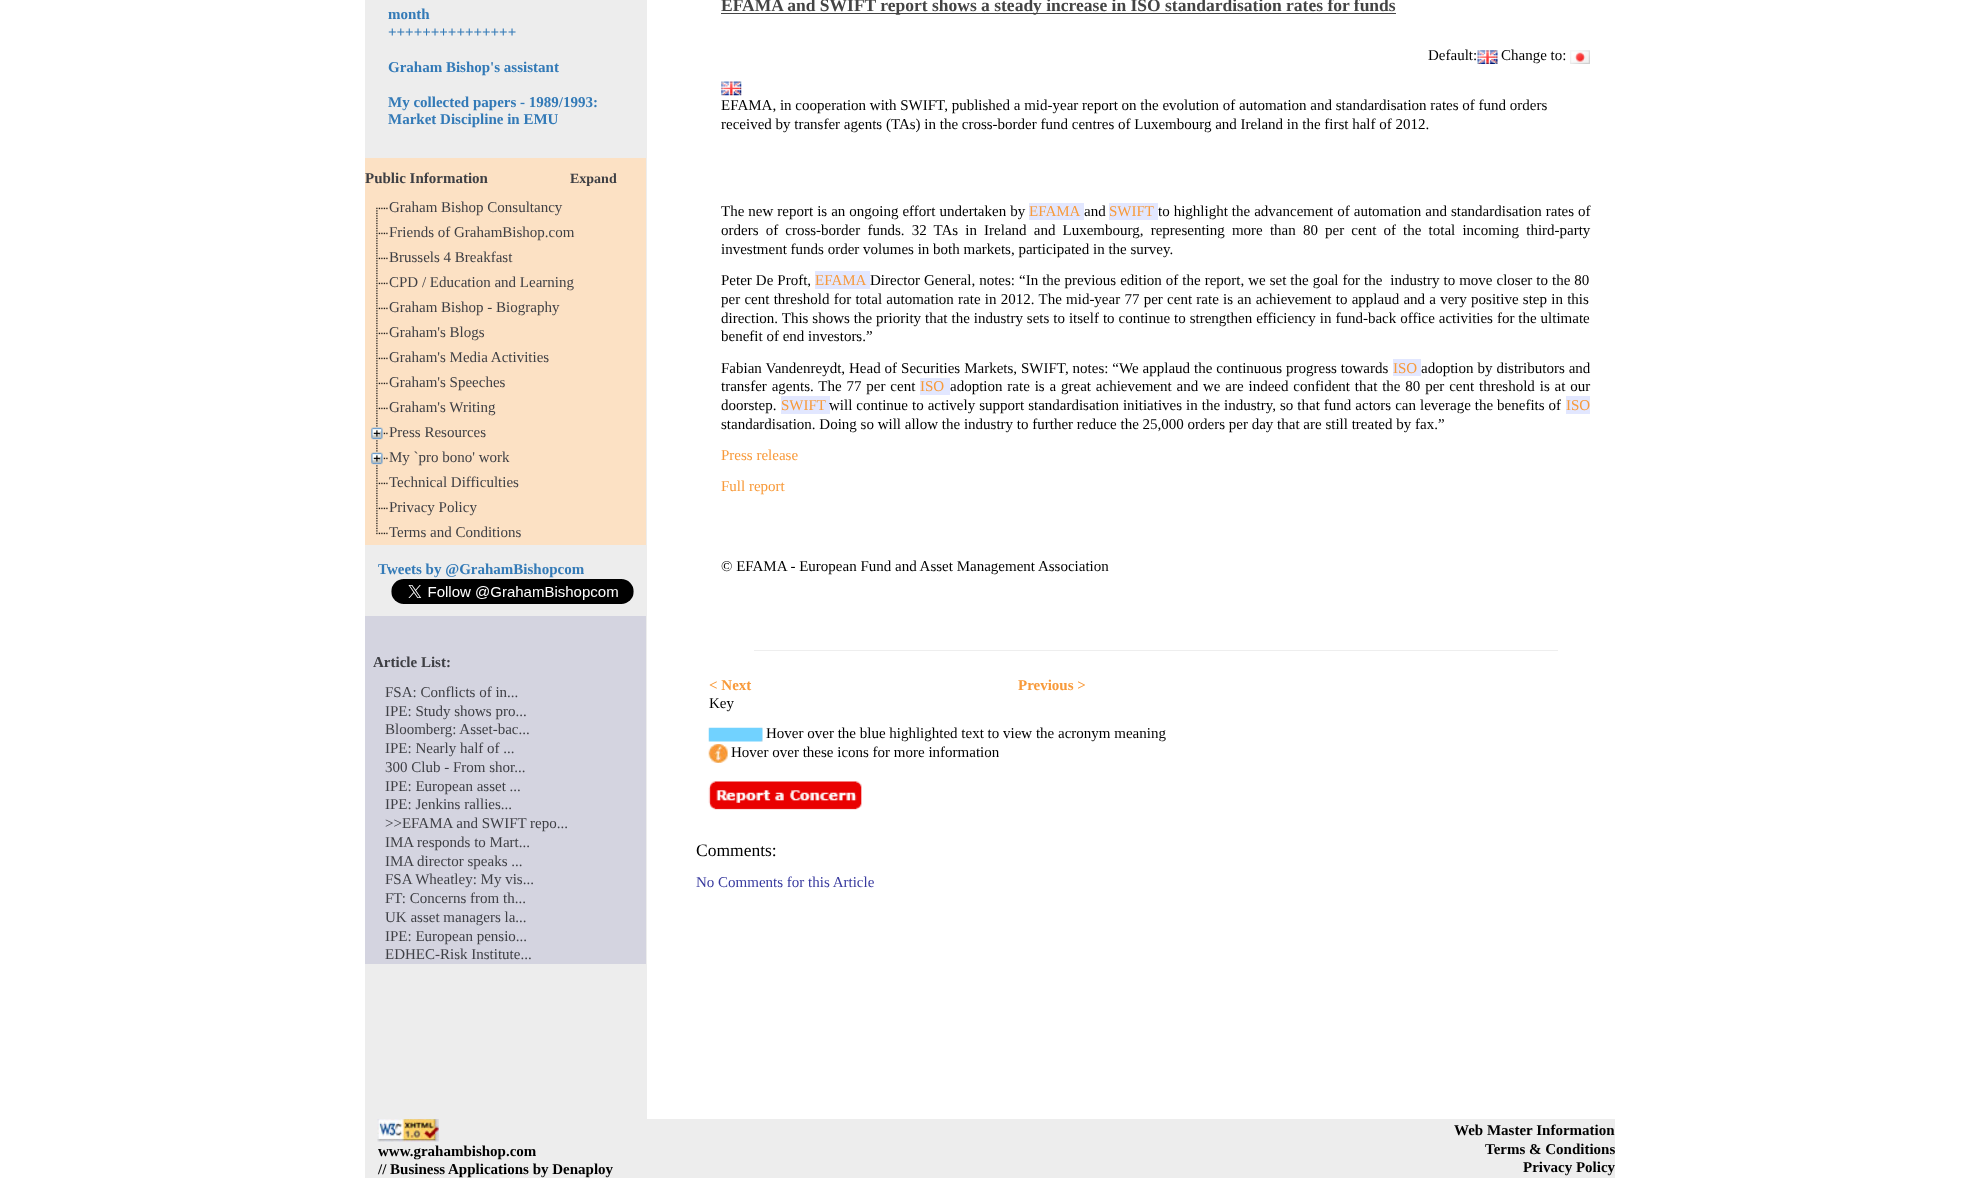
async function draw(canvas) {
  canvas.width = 1980
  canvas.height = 1178
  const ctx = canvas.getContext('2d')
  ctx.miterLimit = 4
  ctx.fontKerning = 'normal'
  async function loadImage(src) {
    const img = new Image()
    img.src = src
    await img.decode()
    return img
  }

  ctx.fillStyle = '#fff'
  ctx.fillRect(0, 0, 1980, 1178)
  ctx.fillStyle = '#ededed'
  ctx.fillRect(365, 0, 282, 1119)
  ctx.font = 'bold 15px Liberation Serif'
  ctx.fillStyle = '#337ab7'
  ctx.fillText('month', 388, 19)
  ctx.fillText('+++++++++++++++', 388, 37)
  ctx.fillText('Graham Bishop\'s assistant', 388, 72)
  ctx.fillText('My collected papers - 1989/1993:', 388, 107)
  ctx.fillText('Market Discipline in EMU', 388, 124)
  ctx.fillStyle = '#fce1c4'
  ctx.fillRect(365, 158, 281, 387)
  ctx.fillStyle = '#3e3f44'
  ctx.fillText('Public Information', 365, 183)
  ctx.font = 'bold 14px Liberation Serif'
  ctx.fillText('Expand', 570, 183)
  ctx.drawImage(await loadImage('image0.png'), 376, 207, 12, 13)
  ctx.font = '15px Liberation Serif'
  ctx.fillText('Graham Bishop Consultancy', 389, 212)
  ctx.drawImage(await loadImage('image1.png'), 376, 220, 12, 25)
  ctx.fillText('Friends of GrahamBishop.com', 389, 237)
  ctx.drawImage(await loadImage('image1.png'), 376, 245, 12, 25)
  ctx.fillText('Brussels 4 Breakfast', 389, 262)
  ctx.drawImage(await loadImage('image1.png'), 376, 270, 12, 25)
  ctx.fillText('CPD / Education and Learning', 389, 287)
  ctx.drawImage(await loadImage('image1.png'), 376, 295, 12, 25)
  ctx.fillText('Graham Bishop - Biography', 389, 312)
  ctx.drawImage(await loadImage('image1.png'), 376, 320, 12, 25)
  ctx.fillText('Graham\'s Blogs', 389, 337)
  ctx.drawImage(await loadImage('image1.png'), 376, 345, 12, 25)
  ctx.fillText('Graham\'s Media Activities', 389, 362)
  ctx.drawImage(await loadImage('image1.png'), 376, 370, 12, 25)
  ctx.fillText('Graham\'s Speeches', 389, 387)
  ctx.drawImage(await loadImage('image2.png'), 376, 395, 12, 25)
  ctx.fillText('Graham\'s Writing', 389, 412)
  ctx.drawImage(await loadImage('image3.png'), 371, 420, 17, 25)
  ctx.fillText('Press Resources', 389, 437)
  ctx.drawImage(await loadImage('image3.png'), 371, 445, 17, 25)
  ctx.fillText('My `pro bono\' work', 389, 462)
  ctx.drawImage(await loadImage('image1.png'), 376, 470, 12, 25)
  ctx.fillText('Technical Difficulties', 389, 487)
  ctx.drawImage(await loadImage('image1.png'), 376, 495, 12, 25)
  ctx.fillText('Privacy Policy', 389, 512)
  ctx.drawImage(await loadImage('image4.png'), 376, 520, 12, 15)
  ctx.fillText('Terms and Conditions', 389, 537)
  ctx.font = 'bold 15px Liberation Serif'
  ctx.fillStyle = '#337ab7'
  ctx.fillText('Tweets by @GrahamBishopcom', 378, 574)
  ctx.drawImage(await loadImage('image5.png'), 391, 579, 243, 25)
  ctx.fillStyle = '#d4d4e0'
  ctx.fillRect(365, 616, 281, 348)
  ctx.fillStyle = '#3e3f44'
  ctx.fillText('Article List:', 373, 667)
  ctx.font = '15px Liberation Serif'
  ctx.fillText('FSA: Conflicts of in...', 385, 697)
  ctx.fillText('IPE: Study shows pro...', 385, 716)
  ctx.fillText('Bloomberg: Asset-bac...', 385, 734)
  ctx.fillText('IPE: Nearly half of ...', 385, 753)
  ctx.fillText('300 Club - From shor...', 385, 772)
  ctx.fillText('IPE: European asset ...', 385, 791)
  ctx.fillText('IPE: Jenkins rallies...', 385, 809)
  ctx.fillText('>>EFAMA and SWIFT repo...', 385, 828)
  ctx.fillText('IMA responds to Mart...', 385, 847)
  ctx.fillText('IMA director speaks ...', 385, 866)
  ctx.fillText('FSA Wheatley: My vis...', 385, 884)
  ctx.fillText('FT: Concerns from th...', 385, 903)
  ctx.fillText('UK asset managers la...', 385, 922)
  ctx.fillText('IPE: European pensio...', 385, 941)
  ctx.fillText('EDHEC-Risk Institute...', 385, 959)
  ctx.fillStyle = '#444'
  ctx.fillRect(721, 13, 675, 1)
  ctx.font = 'bold 17.5px Liberation Serif'
  ctx.fillText('EFAMA and SWIFT report shows a steady increase in ISO standardisation rates for funds', 721, 11)
  ctx.font = '15px Liberation Serif'
  ctx.fillStyle = '#000'
  ctx.fillText('Default:', 1428, 60)
  ctx.drawImage(await loadImage('image6.png'), 1477, 50, 21, 14)
  ctx.fillText('Change to:', 1501, 60)
  ctx.drawImage(await loadImage('image7.png'), 1570, 50, 20, 14)
  ctx.drawImage(await loadImage('image8.png'), 721, 81, 21, 15)
  ctx.fillText('EFAMA, in cooperation with SWIFT, published a mid-year report on the evolution of automation and standardisation rates of fund orders', 721, 110)
  ctx.fillText('received by transfer agents (TAs) in the cross-border fund centres of Luxembourg and Ireland in the first half of 2012.', 721, 129)
  ctx.wordSpacing = '0.25px'
  ctx.fillText('The new report is an ongoing effort undertaken by', 721, 216)
  ctx.fillStyle = '#e2e7ff'
  ctx.fillRect(1029, 203, 55, 17)
  ctx.wordSpacing = '0px'
  ctx.fillStyle = '#f89a3a'
  ctx.fillText('EFAMA', 1029, 216)
  ctx.fillStyle = '#000'
  ctx.fillText('and', 1084, 216)
  ctx.fillStyle = '#e2e7ff'
  ctx.fillRect(1109, 203, 49, 17)
  ctx.fillStyle = '#f89a3a'
  ctx.fillText('SWIFT', 1109, 216)
  ctx.wordSpacing = '0.25px'
  ctx.fillStyle = '#000'
  ctx.fillText('to highlight the advancement of automation and standardisation rates of', 1158, 216)
  ctx.wordSpacing = '3.4px'
  ctx.fillText('orders of cross-border funds. 32 TAs in Ireland and Luxembourg, representing more than 80 per cent of the total incoming third-party', 721, 235)
  ctx.wordSpacing = '0px'
  ctx.fillText('investment funds order volumes in both markets, participated in the survey.', 721, 254)
  ctx.wordSpacing = '0.25px'
  ctx.fillText('Peter De Proft,', 721, 285)
  ctx.fillStyle = '#e2e7ff'
  ctx.fillRect(815, 271, 55, 18)
  ctx.wordSpacing = '0px'
  ctx.fillStyle = '#f89a3a'
  ctx.fillText('EFAMA', 815, 285)
  ctx.wordSpacing = '0.25px'
  ctx.fillStyle = '#000'
  ctx.fillText('Director General, notes: “In the previous edition of the report, we set the goal for the  industry to move closer to the 80', 870, 285)
  ctx.wordSpacing = '0.5px'
  ctx.fillText('per cent threshold for total automation rate in 2012. The mid-year 77 per cent rate is an achievement to applaud and a very positive step in this', 721, 304)
  ctx.wordSpacing = '0.2px'
  ctx.fillText('direction. This shows the priority that the industry sets to itself to continue to strengthen efficiency in fund-back office activities for the ultimate', 721, 323)
  ctx.wordSpacing = '0px'
  ctx.fillText('benefit of end investors.”', 721, 341)
  ctx.wordSpacing = '0.2px'
  ctx.fillText('Fabian Vandenreydt, Head of Securities Markets, SWIFT, notes: “We applaud the continuous progress towards', 721, 373)
  ctx.fillStyle = '#e2e7ff'
  ctx.fillRect(1393, 359, 28, 17)
  ctx.wordSpacing = '0px'
  ctx.fillStyle = '#f89a3a'
  ctx.fillText('ISO', 1393, 373)
  ctx.wordSpacing = '0.2px'
  ctx.fillStyle = '#000'
  ctx.fillText('adoption by distributors and', 1421, 373)
  ctx.wordSpacing = '1.1px'
  ctx.fillText('transfer agents. The 77 per cent', 721, 391)
  ctx.fillStyle = '#e2e7ff'
  ctx.fillRect(920, 378, 30, 17)
  ctx.wordSpacing = '0px'
  ctx.fillStyle = '#f89a3a'
  ctx.fillText('ISO', 920, 391)
  ctx.wordSpacing = '1.1px'
  ctx.fillStyle = '#000'
  ctx.fillText('adoption rate is a great achievement and we are indeed confident that the 80 per cent threshold is at our', 950, 391)
  ctx.wordSpacing = '0px'
  ctx.fillText('doorstep.', 721, 410)
  ctx.fillStyle = '#e2e7ff'
  ctx.fillRect(781, 396, 49, 18)
  ctx.fillStyle = '#f89a3a'
  ctx.fillText('SWIFT', 781, 410)
  ctx.wordSpacing = '0.25px'
  ctx.fillStyle = '#000'
  ctx.fillText('will continue to actively support standardisation initiatives in the industry, so that fund actors can leverage the benefits of', 829, 410)
  ctx.fillStyle = '#e2e7ff'
  ctx.fillRect(1566, 396, 24, 18)
  ctx.wordSpacing = '0px'
  ctx.fillStyle = '#f89a3a'
  ctx.fillText('ISO', 1566, 410)
  ctx.fillStyle = '#000'
  ctx.fillText('standardisation. Doing so will allow the industry to further reduce the 25,000 orders per day that are still treated by fax.”', 721, 429)
  ctx.fillStyle = '#f89a3a'
  ctx.fillText('Press release', 721, 460)
  ctx.fillText('Full report', 721, 491)
  ctx.fillStyle = '#000'
  ctx.fillText('© EFAMA - European Fund and Asset Management Association', 721, 571)
  ctx.fillStyle = '#eee'
  ctx.fillRect(754, 650, 804, 1)
  ctx.font = 'bold 15px Liberation Serif'
  ctx.fillStyle = '#f89a3a'
  ctx.fillText('< Next', 709, 690)
  ctx.fillText('Previous >', 1018, 690)
  ctx.font = '15px Liberation Serif'
  ctx.fillStyle = '#000'
  ctx.fillText('Key', 709, 708)
  ctx.drawImage(await loadImage('image9.png'), 708, 727, 55, 15)
  ctx.fillText('Hover over the blue highlighted text to view the acronym meaning', 766, 738)
  ctx.drawImage(await loadImage('image10.png'), 708, 744, 20, 19)
  ctx.fillText('Hover over these icons for more information', 731, 757)
  ctx.drawImage(await loadImage('image11.png'), 708, 781, 154, 29)
  ctx.font = '17.5px Liberation Serif'
  ctx.fillText('Comments:', 696, 856)
  ctx.font = '15px Liberation Serif'
  ctx.fillStyle = '#37399e'
  ctx.fillText('No Comments for this Article', 696, 887)
  ctx.fillStyle = '#ededed'
  ctx.fillRect(365, 1119, 1250, 59)
  ctx.drawImage(await loadImage('image12.png'), 377, 1119, 62, 23)
  ctx.font = 'bold 15px Liberation Serif'
  ctx.fillStyle = '#000'
  ctx.fillText('www.grahambishop.com', 378, 1156)
  ctx.fillText('// Business Applications by Denaploy', 378, 1174)
  ctx.fillText('Web Master Information', 1454, 1135)
  ctx.fillText('Terms & Conditions', 1485, 1154)
  ctx.fillText('Privacy Policy', 1523, 1172)
}

draw(document.querySelector('canvas'))
